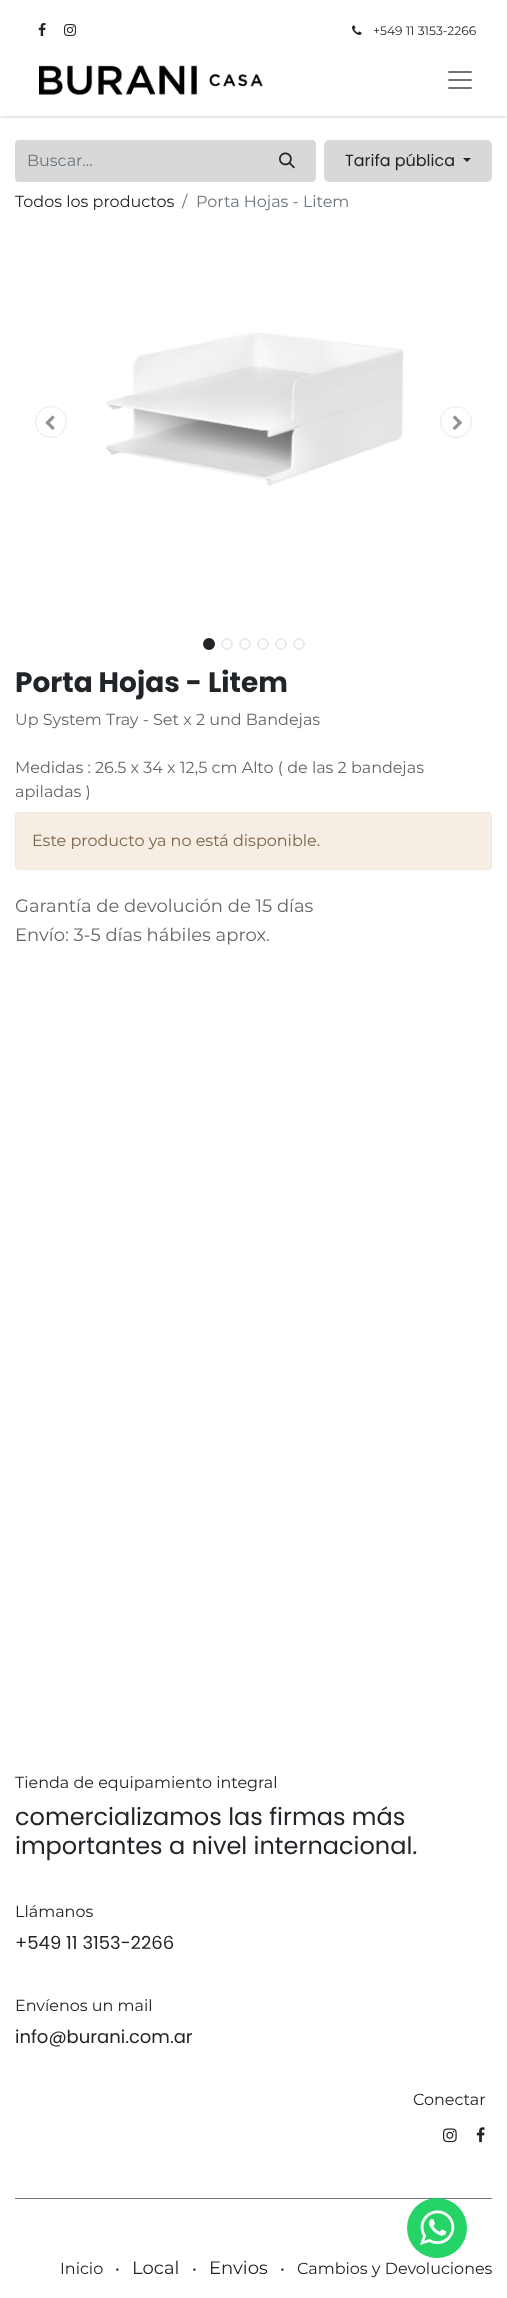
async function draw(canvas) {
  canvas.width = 507
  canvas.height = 2298
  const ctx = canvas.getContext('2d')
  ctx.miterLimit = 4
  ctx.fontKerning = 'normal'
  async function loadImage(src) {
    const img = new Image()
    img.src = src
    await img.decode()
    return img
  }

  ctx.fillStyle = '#fff'
  ctx.fillRect(0, 0, 507, 2298)
  ctx.save()
  ctx.beginPath()
  ctx.rect(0, 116, 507, 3)
  ctx.clip()
  ctx.fillStyle = '#00000040'
  ctx.filter = 'blur(2.5px)'
  ctx.beginPath()
  ctx.rect(0, 0, 507, 116)
  ctx.fill()
  ctx.filter = 'none'
  ctx.restore()
  ctx.drawImage(await loadImage('image0.png'), 38, 23, 8, 13)
  ctx.drawImage(await loadImage('image1.png'), 64, 24, 12, 12)
  ctx.drawImage(await loadImage('image2.png'), 352, 25, 10, 10)
  ctx.font = '12.25px Montserrat'
  ctx.fillStyle = '#212529'
  ctx.fillText('+549 11 3153-2266', 373, 35)
  ctx.drawImage(await loadImage('image3.png'), 39, 65, 224, 30)
  ctx.drawImage(await loadImage('image4.png'), 448, 71, 24, 18)
  ctx.fillStyle = '#d8d8d8'
  ctx.beginPath()
  ctx.roundRect(15, 140, 244, 42, [4, 0, 0, 4])
  ctx.fill()
  ctx.font = '16px Montserrat'
  ctx.fillStyle = '#6c757d'
  ctx.fillText('Buscar…', 27, 166)
  ctx.fillStyle = '#d8d8d8'
  ctx.beginPath()
  ctx.roundRect(258.5, 140.5, 57, 41, [0, 3.5, 3.5, 0])
  ctx.fill()
  ctx.strokeStyle = '#d8d8d8'
  ctx.stroke()
  ctx.drawImage(await loadImage('image5.png'), 279, 152, 16, 17)
  ctx.beginPath()
  ctx.roundRect(324.5, 140.5, 167, 41, 4.5)
  ctx.fill()
  ctx.stroke()
  ctx.font = '16px Poppins'
  ctx.fillStyle = '#212529'
  ctx.fillText('Tarifa pública', 345, 166)
  ctx.beginPath()
  ctx.moveTo(463, 158)
  ctx.lineTo(471, 158)
  ctx.lineTo(467, 162)
  ctx.closePath()
  ctx.fill()
  ctx.font = '16px Montserrat'
  ctx.fillText('Todos los productos', 15, 207)
  ctx.fillStyle = '#6c757d'
  ctx.fillText('/', 182, 207)
  ctx.fillText('Porta Hojas - Litem', 196, 207)
  ctx.beginPath()
  ctx.arc(51, 422, 15.5, 0, 2 * Math.PI)
  ctx.strokeStyle = '#e7eaed'
  ctx.stroke()
  ctx.drawImage(await loadImage('image6.png'), 45, 415, 10, 15)
  ctx.drawImage(await loadImage('image7.png'), 106, 332, 298, 154)
  ctx.beginPath()
  ctx.arc(456, 422, 15.5, 0, 2 * Math.PI)
  ctx.stroke()
  ctx.drawImage(await loadImage('image8.png'), 452, 415, 10, 15)
  ctx.fillStyle = '#212529'
  ctx.beginPath()
  ctx.arc(209, 644, 5, 0, 2 * Math.PI)
  ctx.fill()
  ctx.strokeStyle = '#212529'
  ctx.lineWidth = 2
  ctx.stroke()
  ctx.beginPath()
  ctx.arc(227, 644, 5, 0, 2 * Math.PI)
  ctx.strokeStyle = '#e7eaed'
  ctx.stroke()
  ctx.beginPath()
  ctx.arc(245, 644, 5, 0, 2 * Math.PI)
  ctx.stroke()
  ctx.beginPath()
  ctx.arc(263, 644, 5, 0, 2 * Math.PI)
  ctx.stroke()
  ctx.beginPath()
  ctx.arc(281, 644, 5, 0, 2 * Math.PI)
  ctx.stroke()
  ctx.beginPath()
  ctx.arc(299, 644, 5, 0, 2 * Math.PI)
  ctx.stroke()
  ctx.font = 'bold 28px Poppins'
  ctx.fillText('Porta Hojas - Litem', 15, 692)
  ctx.font = '16px Montserrat'
  ctx.fillStyle = '#646669'
  ctx.fillText('Up System Tray - Set x 2 und Bandejas', 15, 725)
  ctx.fillText('Medidas : 26.5 x 34 x 12,5 cm Alto ( de las 2 bandejas', 15, 773)
  ctx.fillText('apiladas )', 15, 797)
  ctx.fillStyle = '#f6ede4'
  ctx.beginPath()
  ctx.roundRect(15.5, 812.5, 476, 57, 3.5)
  ctx.fill()
  ctx.strokeStyle = '#f1e5d7'
  ctx.lineWidth = 1
  ctx.stroke()
  ctx.fillStyle = '#7d6449'
  ctx.fillText('Este producto ya no está disponible.', 32, 846)
  ctx.font = '18px Montserrat'
  ctx.fillStyle = '#646669'
  ctx.fillText('Garantía de devolución de 15 días', 15, 912)
  ctx.fillText('Envío: 3-5 días hábiles aprox.', 15, 941)
  ctx.font = '16px Montserrat'
  ctx.fillStyle = '#212529'
  ctx.fillText('Tienda de equipamiento integral', 15, 1788)
  ctx.font = '24px Poppins'
  ctx.fillText('comercializamos las firmas más', 15, 1825)
  ctx.fillText('importantes a nivel internacional.', 15, 1854)
  ctx.font = '16px Montserrat'
  ctx.fillText('Llámanos', 15, 1917)
  ctx.font = '18px Poppins'
  ctx.fillText('+549 11 3153-2266', 15, 1949)
  ctx.font = '16px Montserrat'
  ctx.fillText('Envíenos un mail', 15, 2011)
  ctx.font = '18px Poppins'
  ctx.fillText('info@burani.com.ar', 15, 2043)
  ctx.font = '16px Montserrat'
  ctx.fillText('Conectar', 413, 2105)
  ctx.drawImage(await loadImage('image9.png'), 443, 2128, 14, 15)
  ctx.drawImage(await loadImage('image10.png'), 476, 2127, 9, 16)
  ctx.fillStyle = '#6c757d'
  ctx.fillRect(15, 2198, 477, 1)
  ctx.fillStyle = '#212529'
  ctx.fillText('Inicio', 60, 2274)
  ctx.fillText('•', 115, 2274)
  ctx.font = '18px Montserrat'
  ctx.fillText('Local', 132, 2274)
  ctx.font = '16px Montserrat'
  ctx.fillText('•', 192, 2274)
  ctx.font = '18px Montserrat'
  ctx.fillText('Envios', 209, 2274)
  ctx.font = '16px Montserrat'
  ctx.fillText('•', 280, 2274)
  ctx.fillText('Cambios y Devoluciones', 297, 2274)
  ctx.fillStyle = '#25d366'
  ctx.beginPath()
  ctx.arc(437, 2228, 30, 0, 2 * Math.PI)
  ctx.fill()
  ctx.drawImage(await loadImage('image11.png'), 420, 2210, 35, 35)
}

draw(document.querySelector('canvas'))
